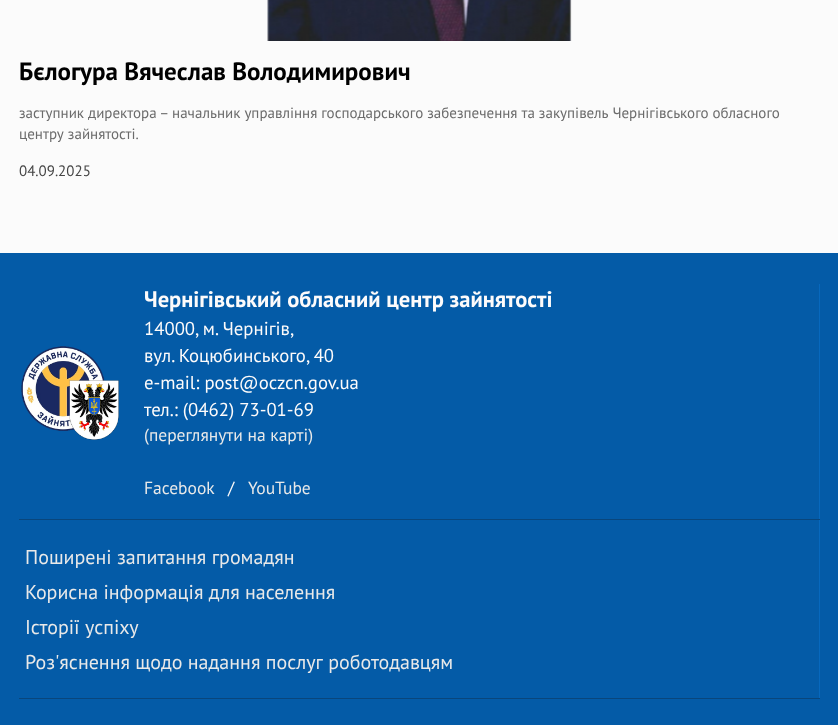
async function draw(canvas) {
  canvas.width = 838
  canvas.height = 725
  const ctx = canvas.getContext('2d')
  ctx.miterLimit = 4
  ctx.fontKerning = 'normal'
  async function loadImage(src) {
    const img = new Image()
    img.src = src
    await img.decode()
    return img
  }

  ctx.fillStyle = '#fbfbfb'
  ctx.fillRect(0, 0, 838, 725)
  ctx.drawImage(await loadImage('image0.png'), 267, 0, 305, 41)
  ctx.font = 'bold 25px PT Sans'
  ctx.fillStyle = '#000'
  ctx.fillText('Бєлогура Вячеслав Володимирович', 19, 80)
  ctx.font = '15px PT Sans'
  ctx.fillStyle = '#6b6b6b'
  ctx.fillText('заступник директора – начальник управління господарського забезпечення та закупівель Чернігівського обласного', 19, 118)
  ctx.fillText('центру зайнятості.', 19, 139)
  ctx.fillStyle = '#444'
  ctx.fillText('04.09.2025', 19, 176)
  ctx.fillStyle = '#045ba7'
  ctx.fillRect(0, 253, 838, 472)
  ctx.fillStyle = '#0768bd'
  ctx.fillRect(819, 284, 1, 415)
  ctx.fillStyle = '#09467c'
  ctx.fillRect(19, 519, 801, 1)
  ctx.drawImage(await loadImage('image1.png'), 21, 346, 98, 94)
  ctx.font = 'bold 22.5px PT Sans'
  ctx.fillStyle = '#fdfbfb'
  ctx.fillText('Чернігівський обласний центр зайнятості', 144, 307)
  ctx.font = '18.75px PT Sans'
  ctx.fillText('14000, м. Чернігів,', 144, 335)
  ctx.fillText('вул. Коцюбинського, 40', 144, 362)
  ctx.fillText('e-mail: post@oczcn.gov.ua', 144, 389)
  ctx.fillText('тел.: (0462) 73-01-69', 144, 416)
  ctx.font = '17.5px PT Sans'
  ctx.fillStyle = '#e9e9e9'
  ctx.fillText('(переглянути на карті)', 144, 441)
  ctx.fillText('Facebook', 144, 494)
  ctx.fillStyle = '#fdfbfb'
  ctx.fillText('/', 228, 494)
  ctx.fillStyle = '#e9e9e9'
  ctx.fillText('YouTube', 248, 494)
  ctx.fillStyle = '#09467c'
  ctx.fillRect(19, 698, 801, 1)
  ctx.font = '20px PT Sans'
  ctx.fillStyle = '#e9e9e9'
  ctx.fillText('Поширені запитання громадян', 25, 564)
  ctx.fillText('Корисна інформація для населення', 25, 599)
  ctx.fillText('Історії успіху', 25, 634)
  ctx.fillText('Роз\'яснення щодо надання послуг роботодавцям', 25, 669)
}

draw(document.querySelector('canvas'))
